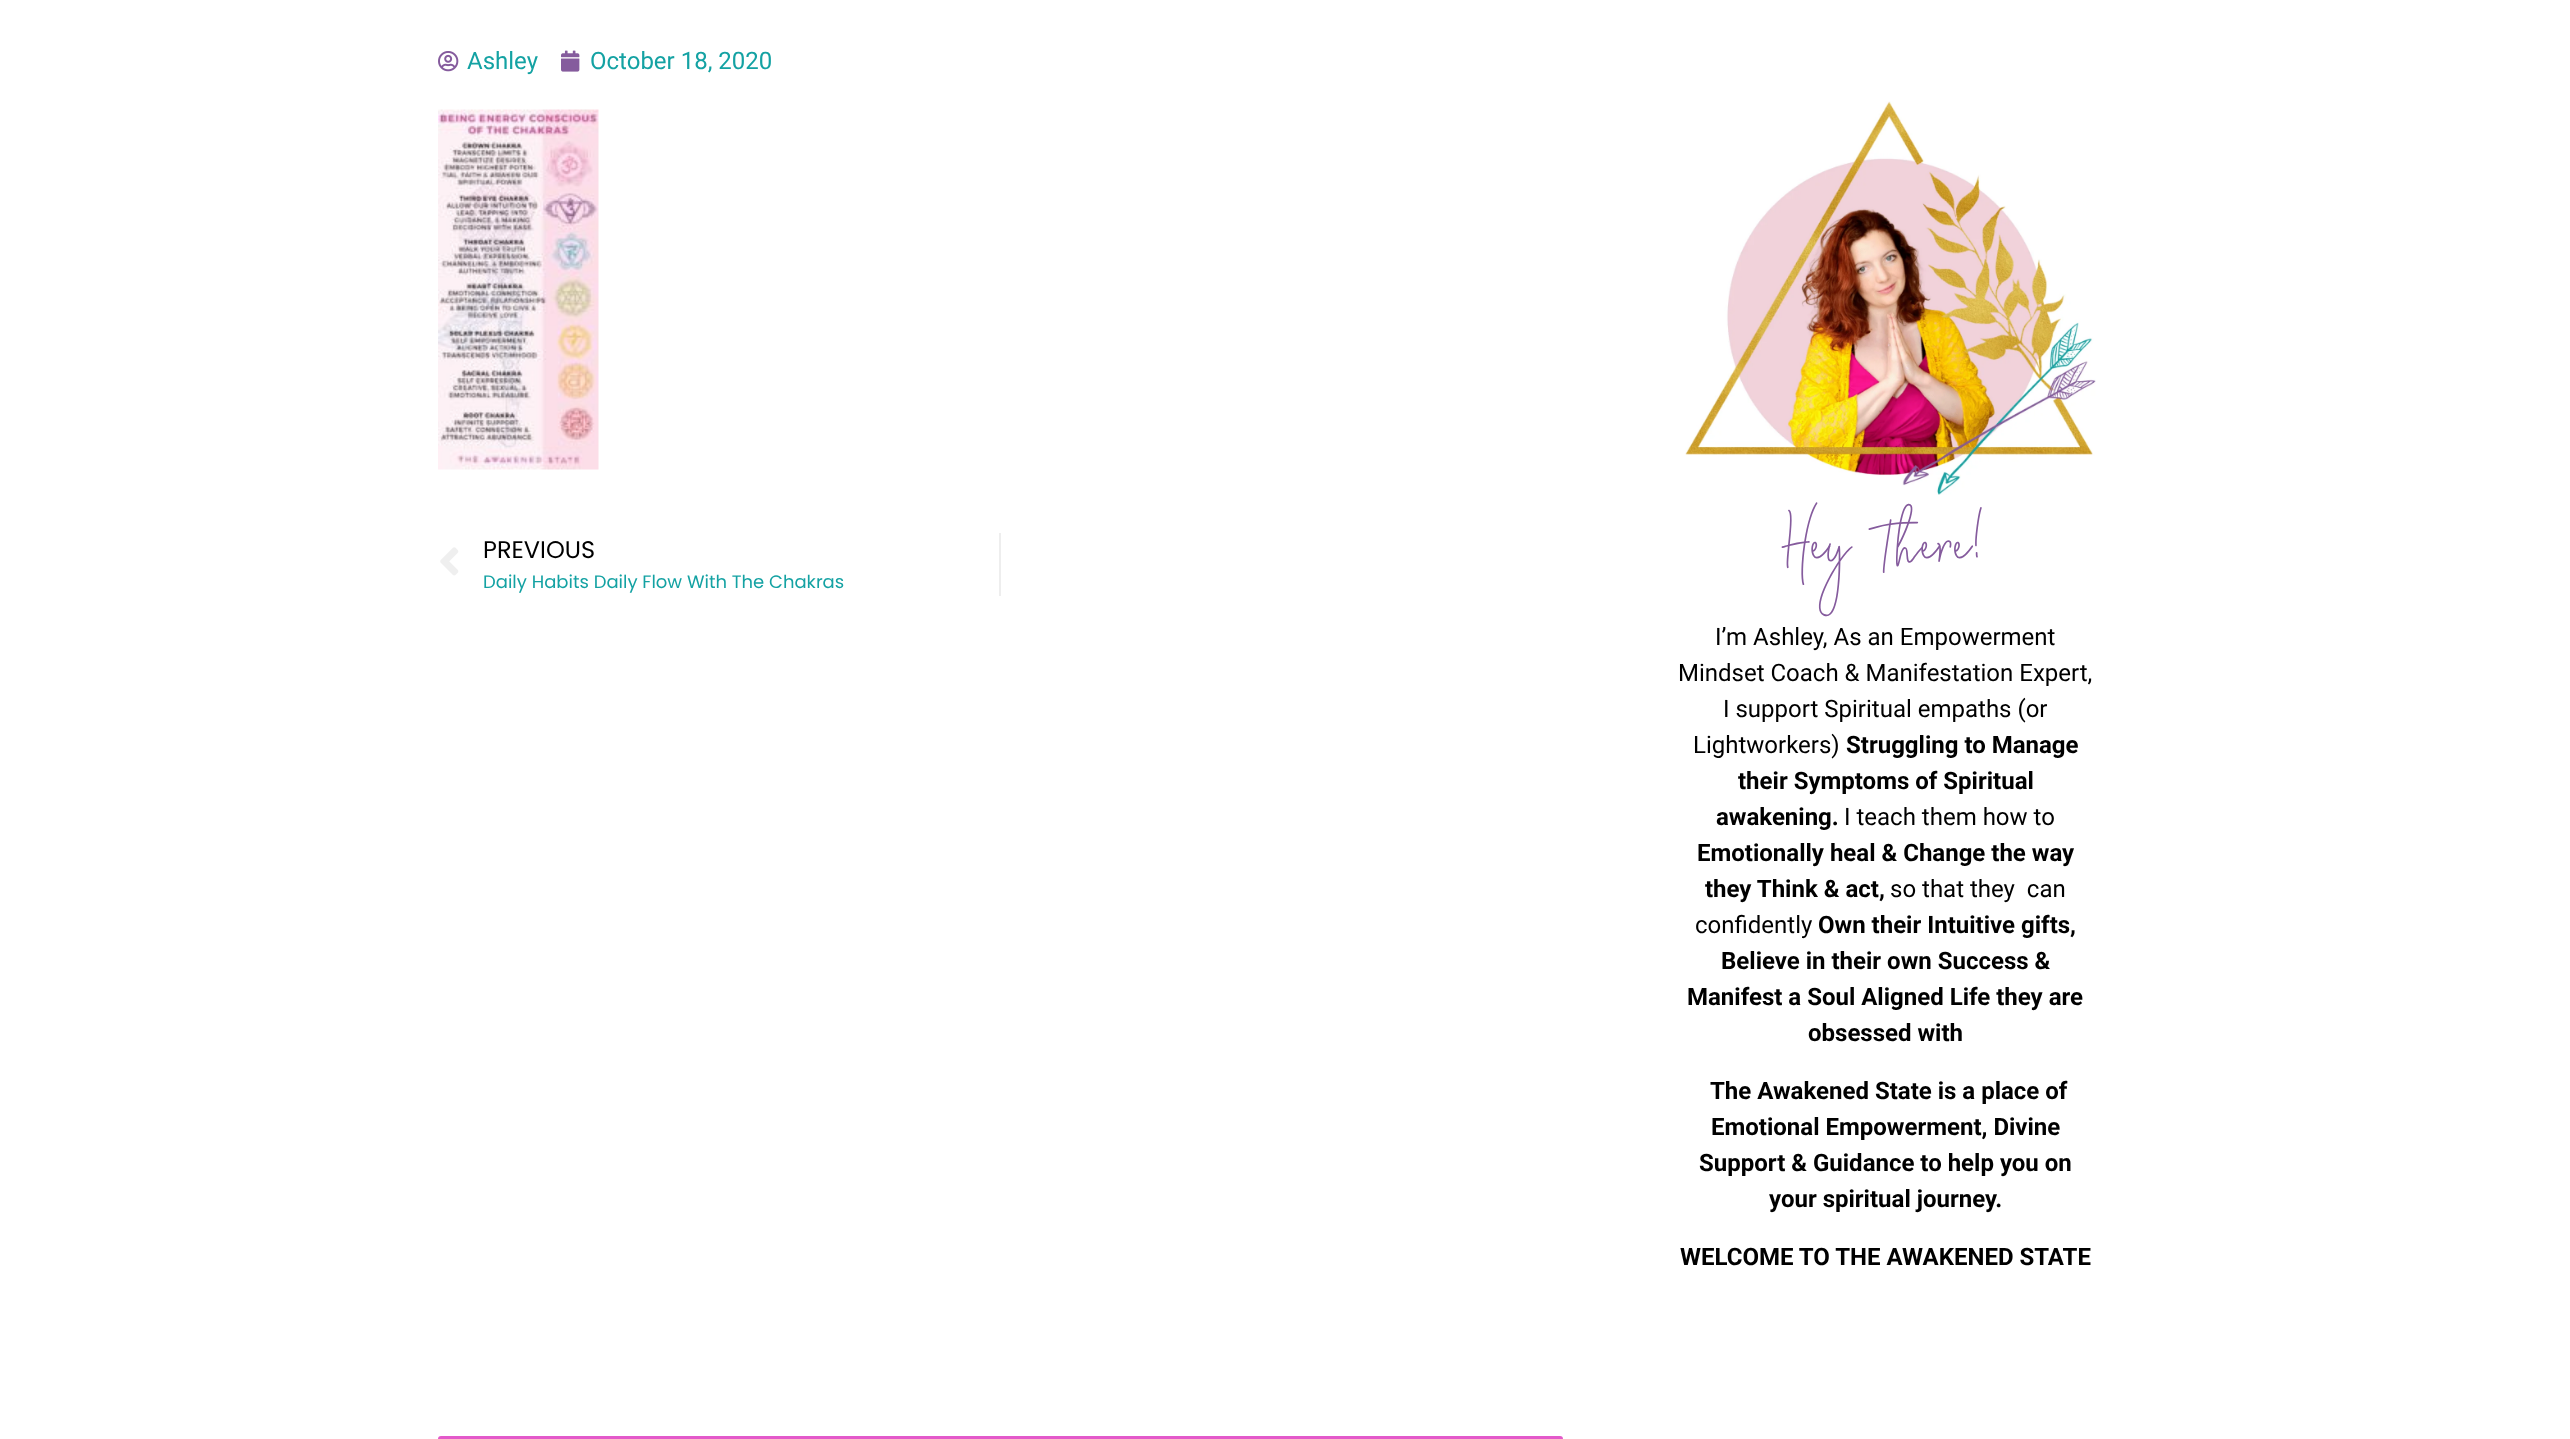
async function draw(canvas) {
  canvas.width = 2570
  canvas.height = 1439
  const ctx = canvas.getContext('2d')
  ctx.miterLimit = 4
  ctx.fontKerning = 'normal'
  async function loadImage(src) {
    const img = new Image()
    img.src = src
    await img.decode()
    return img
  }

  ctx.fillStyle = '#fff'
  ctx.fillRect(0, 0, 2570, 1439)
  ctx.drawImage(await loadImage('image0.png'), 438, 51, 21, 21)
  ctx.font = '24px Roboto'
  ctx.fillStyle = '#14a2a3'
  ctx.fillText('Ashley', 467, 69)
  ctx.drawImage(await loadImage('image1.png'), 561, 50, 19, 22)
  ctx.fillText('October 18, 2020', 590, 69)
  ctx.drawImage(await loadImage('image2.png'), 438, 109, 161, 361)
  ctx.drawImage(await loadImage('image3.png'), 440, 547, 19, 29)
  ctx.font = '24px Poppins'
  ctx.fillStyle = '#000'
  ctx.fillText('PREVIOUS', 483, 558)
  ctx.font = '18px Poppins'
  ctx.fillStyle = '#14a2a3'
  ctx.fillText('Daily Habits Daily Flow With The Chakras', 483, 588)
  ctx.fillStyle = '#eee'
  ctx.fillRect(999, 533, 2, 63)
  ctx.beginPath()
  ctx.roundRect(440.5, 1438.5, 1120, 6, 0.5)
  ctx.strokeStyle = '#e359ca'
  ctx.lineWidth = 5
  ctx.stroke()
  ctx.drawImage(await loadImage('image4.png'), 1685, 101, 411, 394)
  ctx.font = '58.5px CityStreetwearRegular'
  ctx.fillStyle = '#855b9d'
  ctx.fillText('Hey There!', 1787, 560)
  ctx.font = '24px Roboto'
  ctx.fillStyle = '#000'
  ctx.fillText('I’m Ashley, As an Empowerment', 1715, 645)
  ctx.fillText('Mindset Coach & Manifestation Expert,', 1678, 681)
  ctx.fillText('I support Spiritual empaths (or', 1723, 717)
  ctx.fillText('Lightworkers)', 1693, 753)
  ctx.font = 'bold 24px Roboto'
  ctx.fillText('Struggling to Manage', 1846, 753)
  ctx.fillText('their Symptoms of Spiritual', 1738, 789)
  ctx.fillText('awakening.', 1716, 825)
  ctx.font = '24px Roboto'
  ctx.fillText('I teach them how to', 1844, 825)
  ctx.font = 'bold 24px Roboto'
  ctx.fillText('Emotionally heal & Change the way', 1697, 861)
  ctx.fillText('they Think & act,', 1705, 897)
  ctx.font = '24px Roboto'
  ctx.fillText('so that they  can', 1890, 897)
  ctx.fillText('confidently', 1695, 933)
  ctx.font = 'bold 24px Roboto'
  ctx.fillText('Own their Intuitive gifts,', 1818, 933)
  ctx.fillText('Believe in their own Success &', 1721, 969)
  ctx.fillText('Manifest a Soul Aligned Life they are', 1687, 1005)
  ctx.fillText('obsessed with', 1808, 1041)
  ctx.fillText('The Awakened State is a place of', 1710, 1099)
  ctx.fillText('Emotional Empowerment, Divine', 1711, 1135)
  ctx.fillText('Support & Guidance to help you on', 1699, 1171)
  ctx.fillText('your spiritual journey.', 1769, 1207)
  ctx.fillText('WELCOME TO THE AWAKENED STATE', 1680, 1265)
}

draw(document.querySelector('canvas'))
